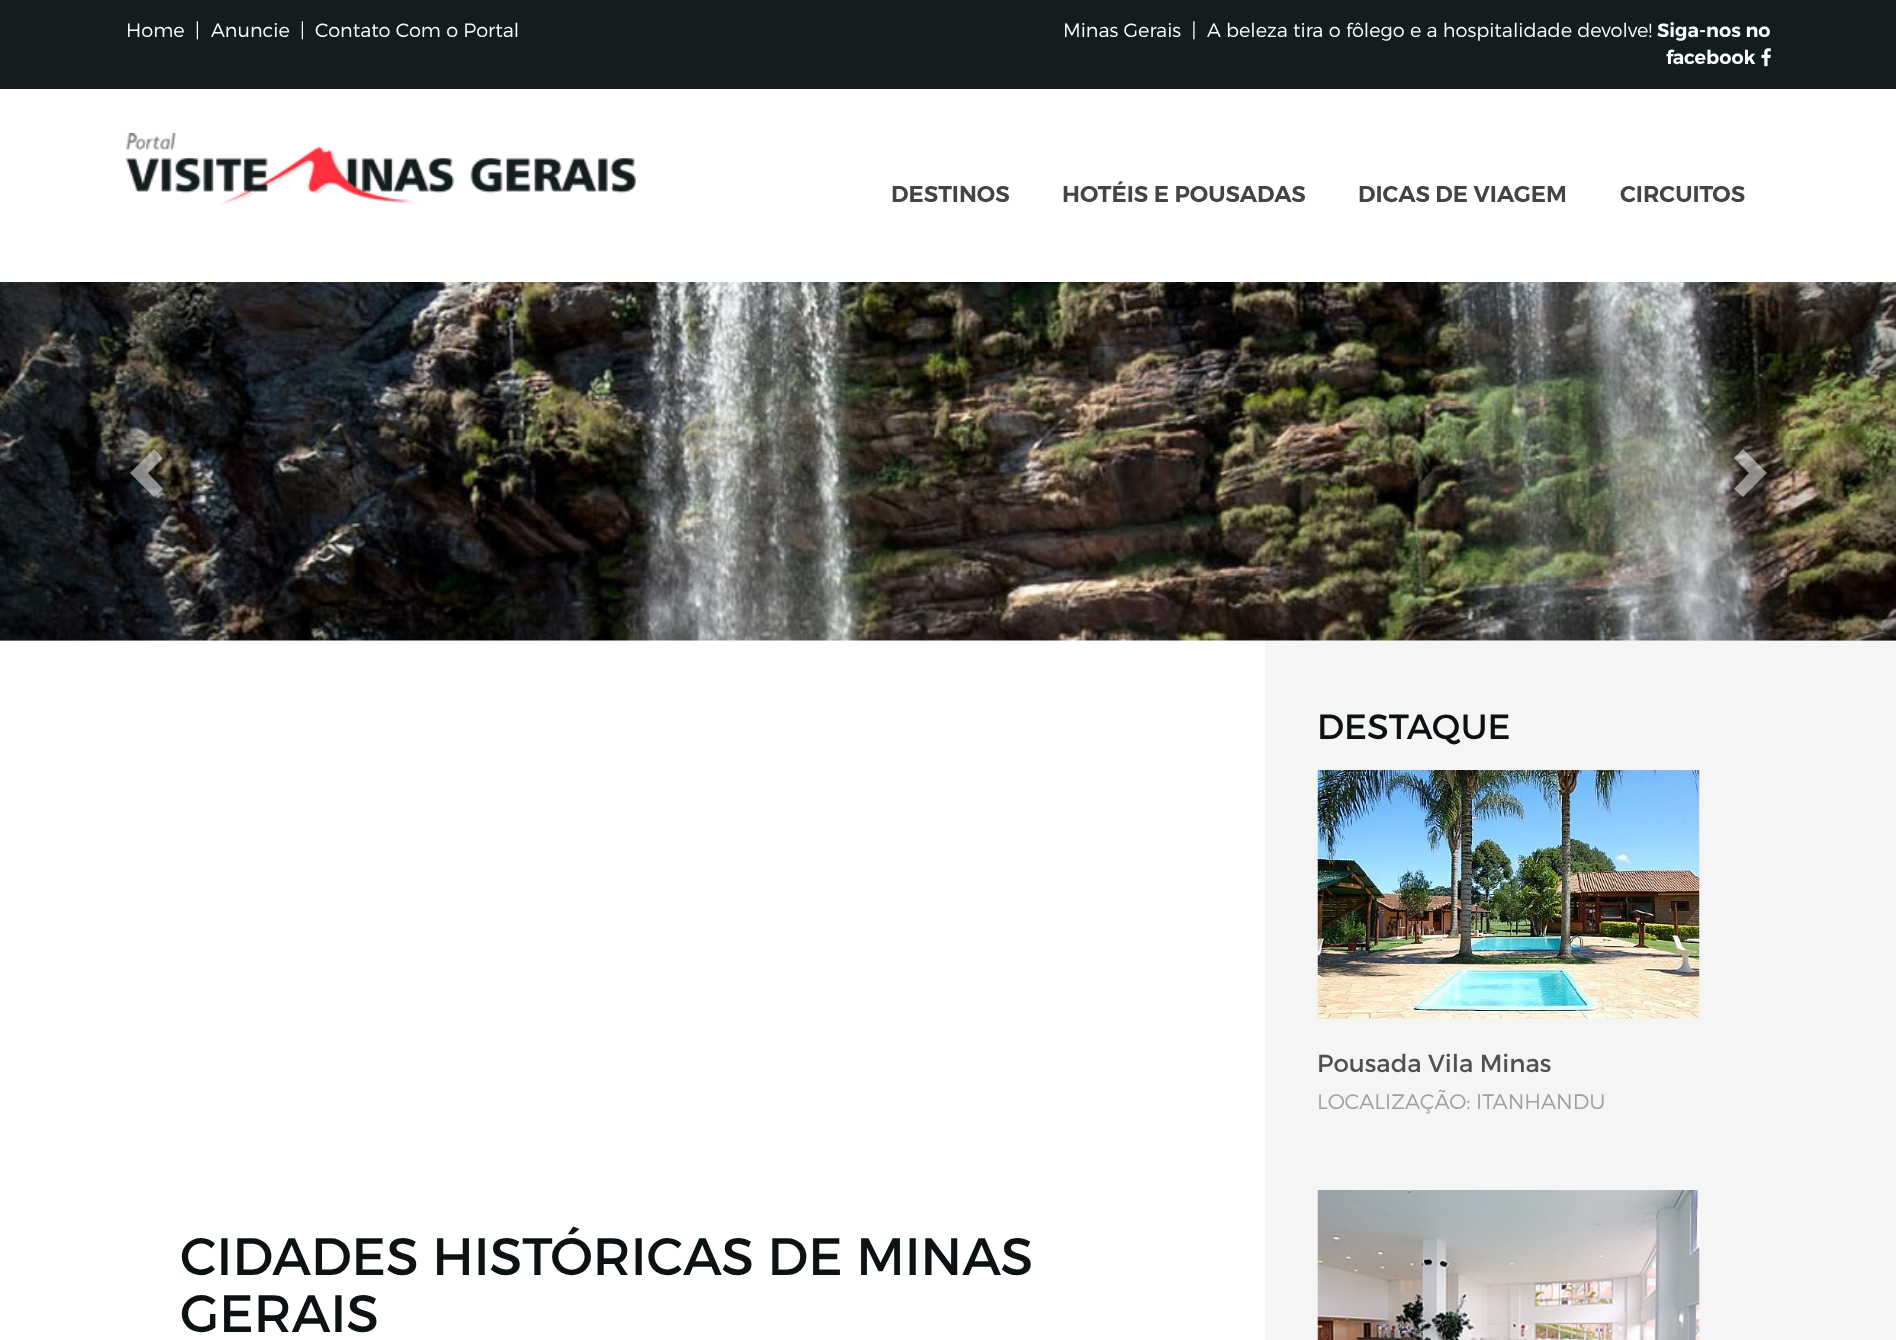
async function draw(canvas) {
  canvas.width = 1896
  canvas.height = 1340
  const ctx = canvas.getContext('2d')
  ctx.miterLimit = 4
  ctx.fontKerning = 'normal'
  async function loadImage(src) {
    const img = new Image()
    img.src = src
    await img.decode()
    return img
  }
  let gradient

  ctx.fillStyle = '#fff'
  ctx.fillRect(0, 0, 1896, 1340)
  ctx.fillStyle = '#141d1e'
  ctx.fillRect(0, 0, 1896, 89)
  ctx.font = '300 19.25px Montserrat'
  ctx.fillStyle = '#fff'
  ctx.fillText('Home', 126, 37)
  ctx.fillText('|', 195, 37)
  ctx.fillText('Anuncie', 211, 37)
  ctx.fillText('|', 300, 37)
  ctx.fillText('Contato Com o Portal', 315, 37)
  ctx.fillText('Minas Gerais  |  A beleza tira o fôlego e a hospitalidade devolve!', 1063, 37)
  ctx.font = '600 19.25px Montserrat'
  ctx.fillText('Siga-nos no', 1657, 37)
  ctx.fillText('facebook', 1666, 64)
  ctx.drawImage(await loadImage('image0.png'), 1761, 48, 10, 19)
  ctx.drawImage(await loadImage('image1.png'), 126, 133, 510, 72)
  ctx.font = '600 22.75px Montserrat'
  ctx.fillStyle = '#444'
  ctx.fillText('DESTINOS', 891, 202)
  ctx.fillText('HOTÉIS E POUSADAS', 1062, 202)
  ctx.fillText('DICAS DE VIAGEM', 1358, 202)
  ctx.fillText('CIRCUITOS', 1620, 202)
  ctx.drawImage(await loadImage('image2.png'), 0, 282, 1896, 359)
  gradient = ctx.createLinearGradient(0, 461, 285, 461)
  gradient.addColorStop(0, '#00000040')
  gradient.addColorStop(1, '#00000000')
  ctx.fillStyle = gradient
  ctx.fillRect(0, 282, 260, 359)
  ctx.fillStyle = '#ffffff80'
  ctx.beginPath()
  ctx.moveTo(163, 458)
  ctx.lineTo(148, 473)
  ctx.lineTo(163, 489)
  ctx.lineTo(154, 497)
  ctx.lineTo(130, 473)
  ctx.lineTo(154, 449)
  ctx.closePath()
  ctx.fill()
  gradient = ctx.createLinearGradient(1612, 461, 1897, 461)
  gradient.addColorStop(0, '#00000000')
  gradient.addColorStop(1, '#00000040')
  ctx.fillStyle = gradient
  ctx.fillRect(1637, 282, 259, 359)
  ctx.fillStyle = '#ffffff80'
  ctx.beginPath()
  ctx.moveTo(1767, 473)
  ctx.lineTo(1743, 497)
  ctx.lineTo(1734, 489)
  ctx.lineTo(1749, 473)
  ctx.lineTo(1734, 458)
  ctx.lineTo(1743, 449)
  ctx.closePath()
  ctx.fill()
  ctx.fillStyle = '#f5f5f5'
  ctx.fillRect(1265, 641, 631, 699)
  ctx.font = '35px Montserrat'
  ctx.fillStyle = '#0c1213'
  ctx.fillText('DESTAQUE', 1317, 739)
  ctx.drawImage(await loadImage('image3.png'), 1317, 770, 383, 249)
  ctx.font = '24.5px Montserrat'
  ctx.fillStyle = '#505050'
  ctx.fillText('Pousada Vila Minas', 1317, 1072)
  ctx.font = '300 21px Montserrat'
  ctx.fillStyle = '#9f9f9f'
  ctx.fillText('LOCALIZAÇÃO: ITANHANDU', 1317, 1109)
  ctx.drawImage(await loadImage('image4.png'), 1317, 1190, 383, 150)
  ctx.font = '52.5px Montserrat'
  ctx.fillStyle = '#0c1213'
  ctx.fillText('CIDADES HISTÓRICAS DE MINAS', 180, 1275)
  ctx.fillText('GERAIS', 180, 1332)
}

draw(document.querySelector('canvas'))
